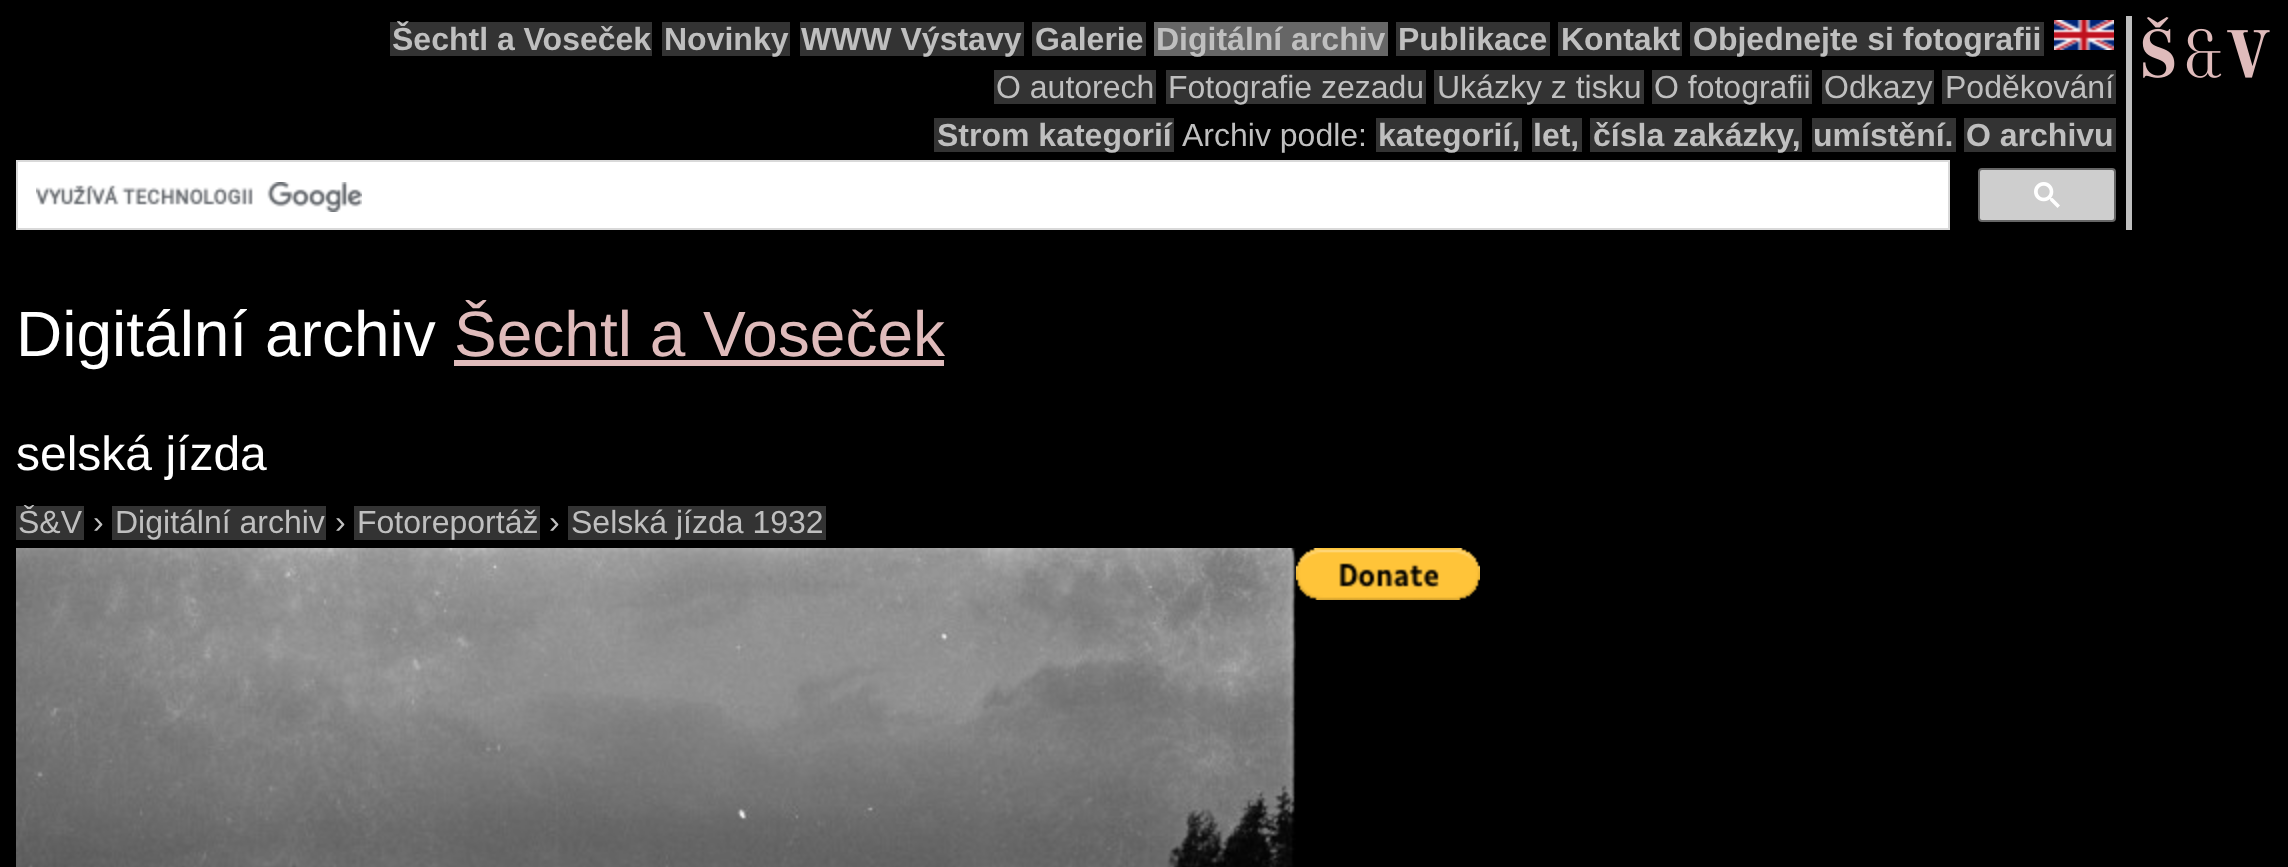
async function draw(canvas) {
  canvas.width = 2288
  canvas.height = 867
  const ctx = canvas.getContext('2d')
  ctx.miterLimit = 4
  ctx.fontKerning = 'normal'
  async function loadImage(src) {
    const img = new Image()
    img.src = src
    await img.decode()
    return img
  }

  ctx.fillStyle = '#000'
  ctx.fillRect(0, 0, 2288, 867)
  ctx.fillStyle = '#bfbfbf'
  ctx.fillRect(2126, 16, 6, 214)
  ctx.fillStyle = '#333'
  ctx.fillRect(390, 22, 262, 34)
  ctx.font = 'bold 32px Liberation Sans'
  ctx.fillStyle = '#bfbfbf'
  ctx.fillText('Šechtl a Voseček', 392, 50)
  ctx.fillStyle = '#333'
  ctx.fillRect(662, 22, 128, 34)
  ctx.fillStyle = '#bfbfbf'
  ctx.fillText('Novinky', 664, 50)
  ctx.fillStyle = '#333'
  ctx.fillRect(800, 22, 224, 34)
  ctx.fillStyle = '#bfbfbf'
  ctx.fillText('WWW Výstavy', 801, 50)
  ctx.fillStyle = '#333'
  ctx.fillRect(1032, 22, 114, 34)
  ctx.fillStyle = '#bfbfbf'
  ctx.fillText('Galerie', 1035, 50)
  ctx.fillStyle = '#666'
  ctx.fillRect(1154, 22, 234, 34)
  ctx.fillStyle = '#bfbfbf'
  ctx.fillText('Digitální archiv', 1156, 50)
  ctx.fillStyle = '#333'
  ctx.fillRect(1396, 22, 154, 34)
  ctx.fillStyle = '#bfbfbf'
  ctx.fillText('Publikace', 1398, 50)
  ctx.fillStyle = '#333'
  ctx.fillRect(1558, 22, 124, 34)
  ctx.fillStyle = '#bfbfbf'
  ctx.fillText('Kontakt', 1561, 50)
  ctx.fillStyle = '#333'
  ctx.fillRect(1690, 22, 354, 34)
  ctx.fillStyle = '#bfbfbf'
  ctx.fillText('Objednejte si fotografii', 1693, 50)
  ctx.drawImage(await loadImage('image0.png'), 2054, 20, 60, 30)
  ctx.fillStyle = '#333'
  ctx.fillRect(994, 70, 162, 34)
  ctx.font = '32px Liberation Sans'
  ctx.fillStyle = '#bfbfbf'
  ctx.fillText('O autorech', 996, 98)
  ctx.fillStyle = '#333'
  ctx.fillRect(1166, 70, 260, 34)
  ctx.fillStyle = '#bfbfbf'
  ctx.fillText('Fotografie zezadu', 1168, 98)
  ctx.fillStyle = '#333'
  ctx.fillRect(1434, 70, 210, 34)
  ctx.fillStyle = '#bfbfbf'
  ctx.fillText('Ukázky z tisku', 1437, 98)
  ctx.fillStyle = '#333'
  ctx.fillRect(1652, 70, 160, 34)
  ctx.fillStyle = '#bfbfbf'
  ctx.fillText('O fotografii', 1654, 98)
  ctx.fillStyle = '#333'
  ctx.fillRect(1822, 70, 112, 34)
  ctx.fillStyle = '#bfbfbf'
  ctx.fillText('Odkazy', 1824, 98)
  ctx.fillStyle = '#333'
  ctx.fillRect(1942, 70, 174, 34)
  ctx.fillStyle = '#bfbfbf'
  ctx.fillText('Poděkování', 1945, 98)
  ctx.fillStyle = '#333'
  ctx.fillRect(934, 118, 240, 34)
  ctx.font = 'bold 32px Liberation Sans'
  ctx.fillStyle = '#bfbfbf'
  ctx.fillText('Strom kategorií', 937, 146)
  ctx.font = '32px Liberation Sans'
  ctx.fillText('Archiv podle:', 1182, 146)
  ctx.fillStyle = '#333'
  ctx.fillRect(1376, 118, 146, 34)
  ctx.font = 'bold 32px Liberation Sans'
  ctx.fillStyle = '#bfbfbf'
  ctx.fillText('kategorií,', 1378, 146)
  ctx.fillStyle = '#333'
  ctx.fillRect(1532, 118, 50, 34)
  ctx.fillStyle = '#bfbfbf'
  ctx.fillText('let,', 1533, 146)
  ctx.fillStyle = '#333'
  ctx.fillRect(1590, 118, 212, 34)
  ctx.fillStyle = '#bfbfbf'
  ctx.fillText('čísla zakázky,', 1593, 146)
  ctx.fillStyle = '#333'
  ctx.fillRect(1812, 118, 144, 34)
  ctx.fillStyle = '#bfbfbf'
  ctx.fillText('umístění.', 1813, 146)
  ctx.fillStyle = '#333'
  ctx.fillRect(1964, 118, 152, 34)
  ctx.fillStyle = '#bfbfbf'
  ctx.fillText('O archivu', 1966, 146)
  ctx.fillStyle = '#fff'
  ctx.beginPath()
  ctx.rect(17, 161, 1932, 68)
  ctx.fill()
  ctx.strokeStyle = '#d9d9d9'
  ctx.lineWidth = 2
  ctx.stroke()
  ctx.drawImage(await loadImage('image1.png'), 36, 182, 326, 30)
  ctx.fillStyle = '#cecece'
  ctx.beginPath()
  ctx.roundRect(1979, 169, 136, 52, 3)
  ctx.fill()
  ctx.strokeStyle = '#666'
  ctx.stroke()
  ctx.drawImage(await loadImage('image2.png'), 2034, 182, 26, 26)
  ctx.drawImage(await loadImage('image3.png'), 2142, 17, 128, 61)
  ctx.font = '64px Liberation Sans'
  ctx.fillStyle = '#fff'
  ctx.fillText('Digitální archiv', 16, 356)
  ctx.fillStyle = '#dfbbbb'
  ctx.fillText('Šechtl a Voseček', 454, 356)
  ctx.fillRect(454, 360, 490, 6)
  ctx.font = '48px Liberation Sans'
  ctx.fillStyle = '#fff'
  ctx.fillText('selská jízda', 16, 470)
  ctx.fillStyle = '#333'
  ctx.fillRect(16, 506, 68, 34)
  ctx.font = '32px Liberation Sans'
  ctx.fillStyle = '#bfbfbf'
  ctx.fillText('Š&V', 18, 533)
  ctx.fillText('›', 93, 533)
  ctx.fillStyle = '#333'
  ctx.fillRect(112, 506, 214, 34)
  ctx.fillStyle = '#bfbfbf'
  ctx.fillText('Digitální archiv', 115, 533)
  ctx.fillText('›', 335, 533)
  ctx.fillStyle = '#333'
  ctx.fillRect(354, 506, 186, 34)
  ctx.fillStyle = '#bfbfbf'
  ctx.fillText('Fotoreportáž', 357, 533)
  ctx.fillText('›', 549, 533)
  ctx.fillStyle = '#333'
  ctx.fillRect(568, 506, 258, 34)
  ctx.fillStyle = '#bfbfbf'
  ctx.fillText('Selská jízda 1932', 571, 533)
  ctx.drawImage(await loadImage('image4.png'), 16, 548, 1280, 319)
  ctx.drawImage(await loadImage('image5.png'), 1296, 548, 184, 52)
}

draw(document.querySelector('canvas'))
